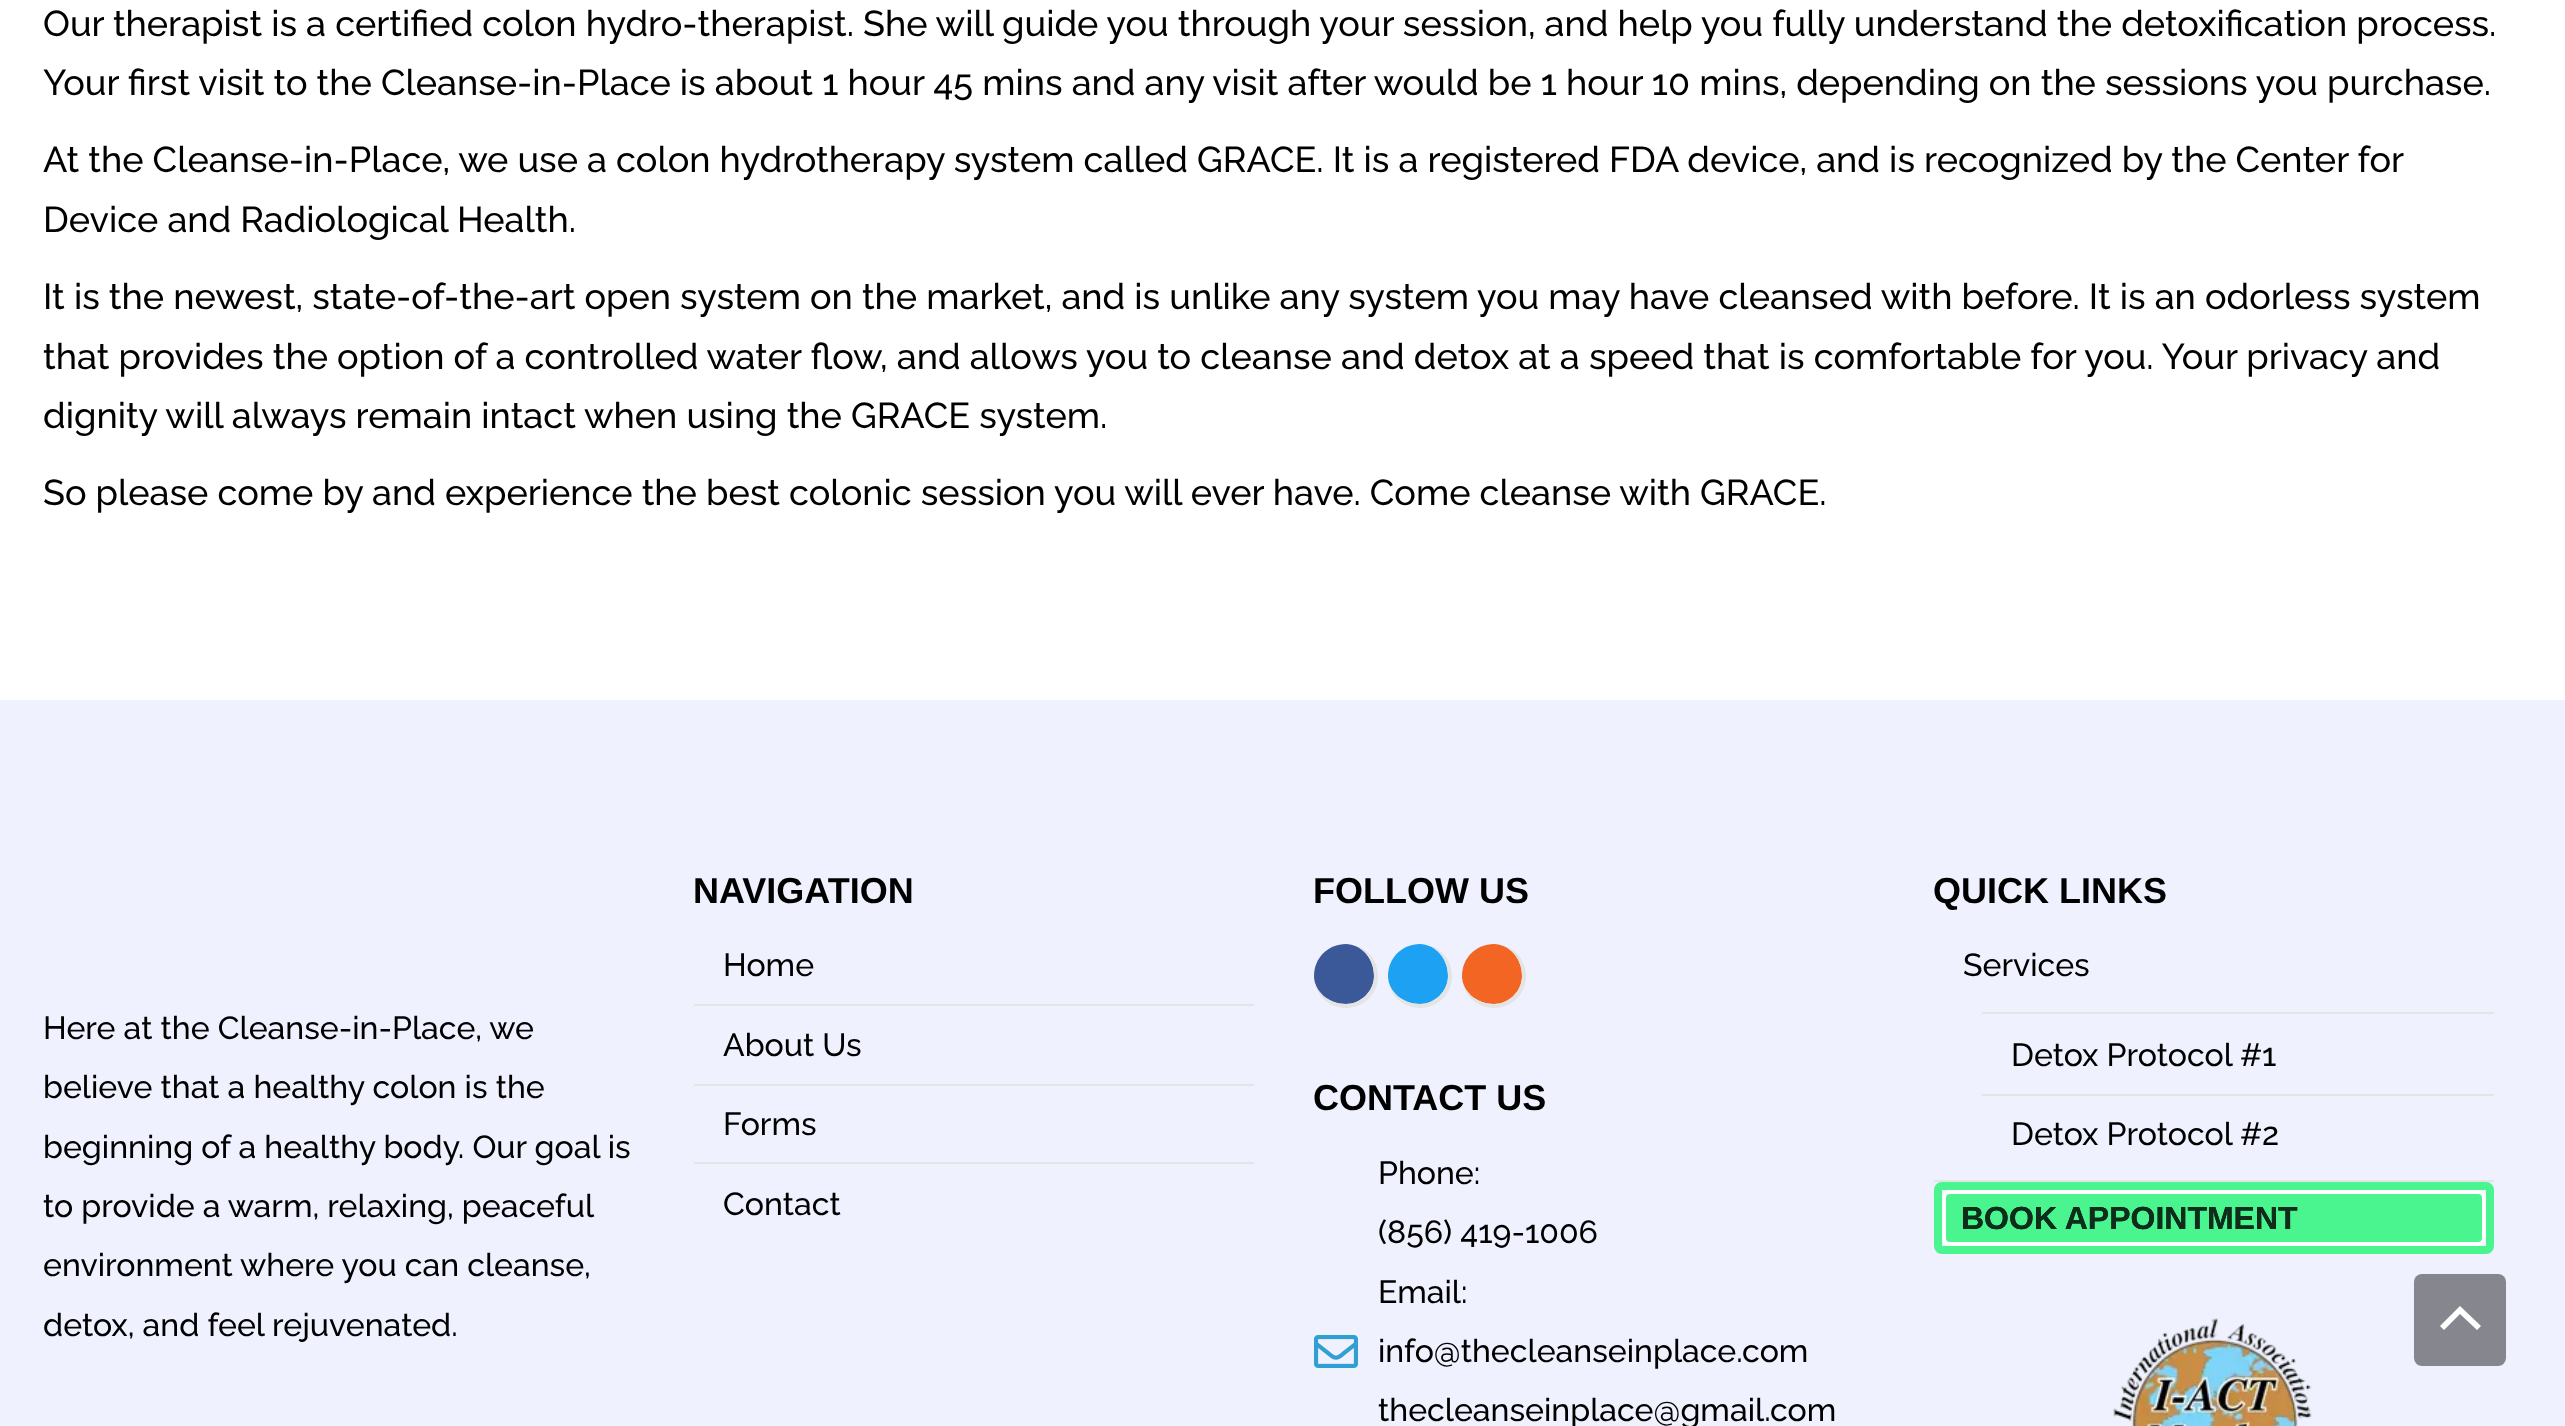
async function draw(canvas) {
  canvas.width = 2565
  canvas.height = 1426
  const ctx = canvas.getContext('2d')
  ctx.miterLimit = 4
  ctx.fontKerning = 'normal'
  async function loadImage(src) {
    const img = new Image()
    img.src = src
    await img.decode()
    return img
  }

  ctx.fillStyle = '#fff'
  ctx.fillRect(0, 0, 2565, 1426)
  ctx.font = '500 36px Raleway'
  ctx.fillStyle = '#000'
  ctx.fillText('Our therapist is a certified colon hydro-therapist. She will guide you through your session, and help you fully understand the detoxification process.', 43, 36)
  ctx.fillText('Your first visit to the Cleanse-in-Place is about 1 hour 45 mins and any visit after would be 1 hour 10 mins, depending on the sessions you purchase.', 43, 95)
  ctx.fillText('At the Cleanse-in-Place, we use a colon hydrotherapy system called GRACE. It is a registered FDA device, and is recognized by the Center for', 43, 172)
  ctx.fillText('Device and Radiological Health.', 43, 232)
  ctx.fillText('It is the newest, state-of-the-art open system on the market, and is unlike any system you may have cleansed with before. It is an odorless system', 43, 309)
  ctx.fillText('that provides the option of a controlled water flow, and allows you to cleanse and detox at a speed that is comfortable for you. Your privacy and', 43, 369)
  ctx.fillText('dignity will always remain intact when using the GRACE system.', 43, 428)
  ctx.fillText('So please come by and experience the best colonic session you will ever have. Come cleanse with GRACE.', 43, 505)
  ctx.fillStyle = '#eff1fe'
  ctx.fillRect(0, 700, 2565, 726)
  ctx.font = '500 32px Raleway'
  ctx.fillStyle = '#000'
  ctx.fillText('Here at the Cleanse-in-Place, we', 43, 1039)
  ctx.fillText('believe that a healthy colon is the', 43, 1098)
  ctx.fillText('beginning of a healthy body. Our goal is', 43, 1158)
  ctx.fillText('to provide a warm, relaxing, peaceful', 43, 1217)
  ctx.fillText('environment where you can cleanse,', 43, 1276)
  ctx.fillText('detox, and feel rejuvenated.', 43, 1336)
  ctx.font = 'bold 36px Liberation Sans'
  ctx.fillText('NAVIGATION', 693, 903)
  ctx.font = '500 32px Raleway'
  ctx.fillText('Home', 723, 976)
  ctx.fillStyle = '#e4e4e4'
  ctx.fillRect(694, 1004, 560, 2)
  ctx.fillStyle = '#000'
  ctx.fillText('About Us', 723, 1056)
  ctx.fillStyle = '#e4e4e4'
  ctx.fillRect(694, 1084, 560, 2)
  ctx.fillStyle = '#000'
  ctx.fillText('Forms', 723, 1135)
  ctx.fillStyle = '#e4e4e4'
  ctx.fillRect(694, 1162, 560, 2)
  ctx.fillStyle = '#000'
  ctx.fillText('Contact', 723, 1215)
  ctx.font = 'bold 36px Liberation Sans'
  ctx.fillText('FOLLOW US', 1313, 903)
  ctx.fillStyle = '#3b5998'
  ctx.beginPath()
  ctx.moveTo(1346, 944)
  ctx.bezierCurveTo(1361, 944, 1374, 958, 1374, 976)
  ctx.bezierCurveTo(1374, 991, 1361, 1004, 1346, 1004)
  ctx.bezierCurveTo(1328, 1004, 1314, 991, 1314, 976)
  ctx.bezierCurveTo(1314, 958, 1328, 944, 1346, 944)
  ctx.closePath()
  ctx.fill()
  ctx.fillStyle = '#e4e4e4'
  ctx.beginPath()
  ctx.moveTo(1346, 944)
  ctx.bezierCurveTo(1364, 944, 1378, 958, 1378, 976)
  ctx.bezierCurveTo(1378, 994, 1364, 1008, 1346, 1008)
  ctx.bezierCurveTo(1328, 1008, 1314, 994, 1314, 976)
  ctx.bezierCurveTo(1314, 958, 1328, 944, 1346, 944)
  ctx.closePath()
  ctx.moveTo(1346, 944)
  ctx.bezierCurveTo(1361, 944, 1374, 958, 1374, 976)
  ctx.bezierCurveTo(1374, 991, 1361, 1004, 1346, 1004)
  ctx.bezierCurveTo(1328, 1004, 1314, 991, 1314, 976)
  ctx.bezierCurveTo(1314, 958, 1328, 944, 1346, 944)
  ctx.closePath()
  ctx.fill('evenodd')
  ctx.fillStyle = '#1da1f2'
  ctx.beginPath()
  ctx.moveTo(1420, 944)
  ctx.bezierCurveTo(1435, 944, 1448, 958, 1448, 976)
  ctx.bezierCurveTo(1448, 991, 1435, 1004, 1420, 1004)
  ctx.bezierCurveTo(1402, 1004, 1388, 991, 1388, 976)
  ctx.bezierCurveTo(1388, 958, 1402, 944, 1420, 944)
  ctx.closePath()
  ctx.fill()
  ctx.fillStyle = '#e4e4e4'
  ctx.beginPath()
  ctx.moveTo(1420, 944)
  ctx.bezierCurveTo(1438, 944, 1452, 958, 1452, 976)
  ctx.bezierCurveTo(1452, 994, 1438, 1008, 1420, 1008)
  ctx.bezierCurveTo(1402, 1008, 1388, 994, 1388, 976)
  ctx.bezierCurveTo(1388, 958, 1402, 944, 1420, 944)
  ctx.closePath()
  ctx.moveTo(1420, 944)
  ctx.bezierCurveTo(1435, 944, 1448, 958, 1448, 976)
  ctx.bezierCurveTo(1448, 991, 1435, 1004, 1420, 1004)
  ctx.bezierCurveTo(1402, 1004, 1388, 991, 1388, 976)
  ctx.bezierCurveTo(1388, 958, 1402, 944, 1420, 944)
  ctx.closePath()
  ctx.fill('evenodd')
  ctx.fillStyle = '#f26522'
  ctx.beginPath()
  ctx.moveTo(1494, 944)
  ctx.bezierCurveTo(1509, 944, 1522, 958, 1522, 976)
  ctx.bezierCurveTo(1522, 991, 1509, 1004, 1494, 1004)
  ctx.bezierCurveTo(1476, 1004, 1462, 991, 1462, 976)
  ctx.bezierCurveTo(1462, 958, 1476, 944, 1494, 944)
  ctx.closePath()
  ctx.fill()
  ctx.fillStyle = '#e4e4e4'
  ctx.beginPath()
  ctx.moveTo(1494, 944)
  ctx.bezierCurveTo(1512, 944, 1526, 958, 1526, 976)
  ctx.bezierCurveTo(1526, 994, 1512, 1008, 1494, 1008)
  ctx.bezierCurveTo(1476, 1008, 1462, 994, 1462, 976)
  ctx.bezierCurveTo(1462, 958, 1476, 944, 1494, 944)
  ctx.closePath()
  ctx.moveTo(1494, 944)
  ctx.bezierCurveTo(1509, 944, 1522, 958, 1522, 976)
  ctx.bezierCurveTo(1522, 991, 1509, 1004, 1494, 1004)
  ctx.bezierCurveTo(1476, 1004, 1462, 991, 1462, 976)
  ctx.bezierCurveTo(1462, 958, 1476, 944, 1494, 944)
  ctx.closePath()
  ctx.fill('evenodd')
  ctx.fillStyle = '#000'
  ctx.fillText('CONTACT US', 1313, 1110)
  ctx.font = '500 32px Raleway'
  ctx.fillText('Phone:', 1378, 1184)
  ctx.fillText('(856) 419-1006', 1378, 1243)
  ctx.drawImage(await loadImage('image0.png'), 1314, 1335, 44, 33)
  ctx.fillText('Email:', 1378, 1303)
  ctx.fillText('info@thecleanseinplace.com', 1378, 1362)
  ctx.fillText('thecleanseinplace@gmail.com', 1378, 1421)
  ctx.font = 'bold 36px Liberation Sans'
  ctx.fillText('QUICK LINKS', 1933, 903)
  ctx.font = '500 32px Raleway'
  ctx.fillText('Services', 1963, 976)
  ctx.fillStyle = '#e4e4e4'
  ctx.fillRect(1982, 1012, 512, 2)
  ctx.fillStyle = '#000'
  ctx.fillText('Detox Protocol #1', 2011, 1066)
  ctx.fillStyle = '#e4e4e4'
  ctx.fillRect(1982, 1094, 512, 2)
  ctx.fillStyle = '#000'
  ctx.fillText('Detox Protocol #2', 2011, 1145)
  ctx.fillStyle = '#e4e4e4'
  ctx.fillRect(1934, 1180, 560, 2)
  ctx.beginPath()
  ctx.roundRect(1938, 1186, 552, 64, 4)
  ctx.strokeStyle = '#4af48f'
  ctx.lineWidth = 8
  ctx.stroke()
  ctx.fillStyle = '#4af48f'
  ctx.beginPath()
  ctx.roundRect(1944, 1192, 540, 52, 6)
  ctx.fill()
  ctx.strokeStyle = '#fff'
  ctx.lineWidth = 4
  ctx.stroke()
  ctx.font = 'bold 32px Liberation Sans'
  ctx.fillStyle = '#000'
  ctx.fillText('BOOK APPOINTMENT', 1961, 1229)
  ctx.fillStyle = '#0e2d1a'
  ctx.fillText('BOOK APPOINTMENT', 1961, 1229)
  ctx.drawImage(await loadImage('image1.png'), 2113, 1318, 199, 108)
  ctx.fillStyle = '#86878e'
  ctx.beginPath()
  ctx.roundRect(2414, 1274, 92, 92, 8)
  ctx.fill()
  ctx.fillStyle = '#fff'
  ctx.beginPath()
  ctx.moveTo(2481, 1326)
  ctx.lineTo(2460, 1306)
  ctx.lineTo(2440, 1326)
  ctx.lineTo(2444, 1330)
  ctx.lineTo(2460, 1314)
  ctx.lineTo(2477, 1330)
  ctx.closePath()
  ctx.fill()
}

draw(document.querySelector('canvas'))
